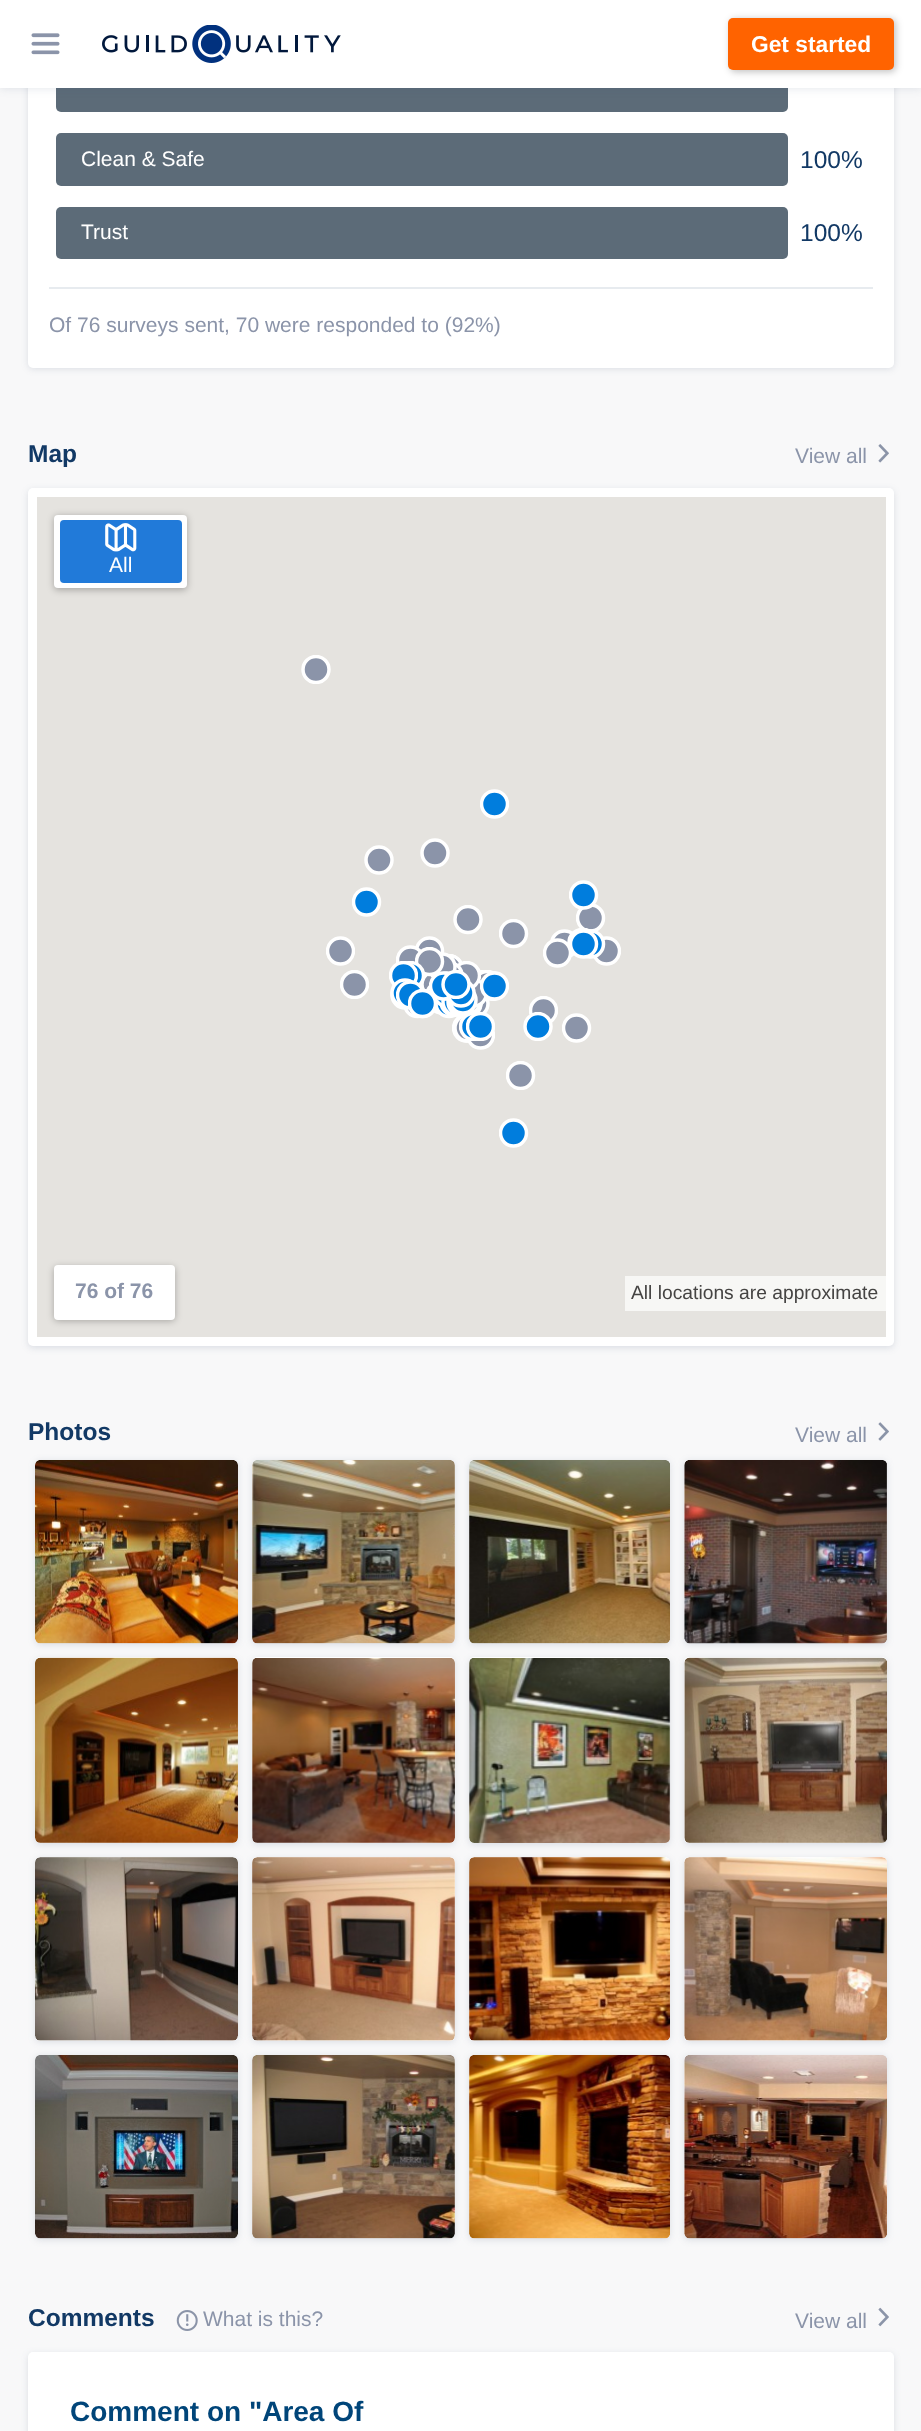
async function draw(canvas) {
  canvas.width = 921
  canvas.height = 2431
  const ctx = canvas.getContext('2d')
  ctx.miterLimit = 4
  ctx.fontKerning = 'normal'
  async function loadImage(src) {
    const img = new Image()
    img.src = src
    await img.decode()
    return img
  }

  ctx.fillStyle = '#f8f8f9'
  ctx.fillRect(0, 0, 921, 2431)
  ctx.fillStyle = '#334a6d26'
  ctx.filter = 'blur(3.5px)'
  ctx.beginPath()
  ctx.roundRect(28, -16, 866, 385, 5)
  ctx.fill()
  ctx.filter = 'none'
  ctx.fillStyle = '#fff'
  ctx.beginPath()
  ctx.roundRect(28, -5, 866, 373, 5)
  ctx.fill()
  ctx.fillStyle = '#5c6b78'
  ctx.beginPath()
  ctx.roundRect(56, 60, 732, 52, 5)
  ctx.fill()
  ctx.fillStyle = '#334a6d1f'
  ctx.filter = 'blur(4.5px)'
  ctx.beginPath()
  ctx.rect(0, 2, 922, 87)
  ctx.fill()
  ctx.filter = 'none'
  ctx.fillStyle = '#fff'
  ctx.fillRect(0, 0, 921, 88)
  ctx.drawImage(await loadImage('image0.png'), 31, 33, 29, 22)
  ctx.drawImage(await loadImage('image1.png'), 102, 25, 239, 38)
  ctx.fillStyle = '#0000003d'
  ctx.filter = 'blur(3.5px)'
  ctx.beginPath()
  ctx.roundRect(730, 19, 166, 53, 5)
  ctx.fill()
  ctx.filter = 'none'
  ctx.fillStyle = '#ff6300'
  ctx.beginPath()
  ctx.roundRect(728, 18, 166, 52, 5)
  ctx.fill()
  ctx.font = 'bold 22.75px Liberation Sans'
  ctx.fillStyle = '#fff'
  ctx.fillText('Get started', 751, 52)
  ctx.fillStyle = '#5c6b78'
  ctx.beginPath()
  ctx.roundRect(56, 133, 732, 53, 5)
  ctx.fill()
  ctx.font = '21px Liberation Sans'
  ctx.fillStyle = '#fff'
  ctx.fillText('Clean & Safe', 81, 166)
  ctx.font = '24.5px Liberation Sans'
  ctx.fillStyle = '#123965'
  ctx.fillText('100%', 800, 168)
  ctx.fillStyle = '#5c6b78'
  ctx.beginPath()
  ctx.roundRect(56, 207, 732, 52, 5)
  ctx.fill()
  ctx.font = '21px Liberation Sans'
  ctx.fillStyle = '#fff'
  ctx.fillText('Trust', 81, 239)
  ctx.font = '24.5px Liberation Sans'
  ctx.fillStyle = '#123965'
  ctx.fillText('100%', 800, 241)
  ctx.fillStyle = '#e7ebef'
  ctx.fillRect(49, 287, 824, 2)
  ctx.font = '21px Liberation Sans'
  ctx.fillStyle = '#8b94a9'
  ctx.fillText('Of 76 surveys sent, 70 were responded to (92%)', 49, 332)
  ctx.font = 'bold 24.5px Liberation Sans'
  ctx.fillStyle = '#123965'
  ctx.fillText('Map', 28, 462)
  ctx.font = '21px Liberation Sans'
  ctx.fillStyle = '#8b94a9'
  ctx.fillText('View all', 795, 463)
  ctx.drawImage(await loadImage('image2.png'), 878, 444, 11, 19)
  ctx.fillStyle = '#334a6d26'
  ctx.filter = 'blur(3.5px)'
  ctx.beginPath()
  ctx.roundRect(28, 490, 866, 858, 5)
  ctx.fill()
  ctx.filter = 'none'
  ctx.fillStyle = '#fff'
  ctx.beginPath()
  ctx.roundRect(28, 488, 866, 858, 5)
  ctx.fill()
  ctx.fillStyle = '#e5e3df'
  ctx.fillRect(37, 497, 849, 840)
  ctx.fillStyle = '#8b94a9'
  ctx.beginPath()
  ctx.arc(316, 669.5, 13, 0, 2 * Math.PI)
  ctx.fill()
  ctx.save()
  ctx.beginPath()
  ctx.rect(301, 655, 30, 29)
  ctx.clip()
  ctx.beginPath()
  ctx.arc(316, 669.5, 13, 0, 2 * Math.PI)
  ctx.strokeStyle = '#fff'
  ctx.lineWidth = 3.5
  ctx.stroke()
  ctx.restore()
  ctx.fillStyle = '#007ddd'
  ctx.beginPath()
  ctx.arc(494.5, 804, 13, 0, 2 * Math.PI)
  ctx.fill()
  ctx.save()
  ctx.beginPath()
  ctx.rect(480, 789, 29, 30)
  ctx.clip()
  ctx.beginPath()
  ctx.arc(494.5, 804, 13, 0, 2 * Math.PI)
  ctx.strokeStyle = '#fff'
  ctx.lineWidth = 3.5
  ctx.stroke()
  ctx.restore()
  ctx.fillStyle = '#8b94a9'
  ctx.beginPath()
  ctx.arc(379, 860, 13, 0, 2 * Math.PI)
  ctx.fill()
  ctx.strokeStyle = '#fff'
  ctx.lineWidth = 3.5
  ctx.stroke()
  ctx.beginPath()
  ctx.arc(435, 853, 13, 0, 2 * Math.PI)
  ctx.fill()
  ctx.stroke()
  ctx.fillStyle = '#007ddd'
  ctx.beginPath()
  ctx.arc(366.5, 902, 13, 0, 2 * Math.PI)
  ctx.fill()
  ctx.save()
  ctx.beginPath()
  ctx.rect(352, 887, 30, 30)
  ctx.clip()
  ctx.beginPath()
  ctx.arc(366.5, 902, 13, 0, 2 * Math.PI)
  ctx.stroke()
  ctx.restore()
  ctx.fillStyle = '#8b94a9'
  ctx.beginPath()
  ctx.arc(590.5, 918, 13, 0, 2 * Math.PI)
  ctx.fill()
  ctx.save()
  ctx.beginPath()
  ctx.rect(576, 903, 30, 30)
  ctx.clip()
  ctx.beginPath()
  ctx.arc(590.5, 918, 13, 0, 2 * Math.PI)
  ctx.stroke()
  ctx.restore()
  ctx.fillStyle = '#007ddd'
  ctx.beginPath()
  ctx.arc(583.5, 895, 13, 0, 2 * Math.PI)
  ctx.fill()
  ctx.save()
  ctx.beginPath()
  ctx.rect(569, 880, 30, 30)
  ctx.clip()
  ctx.beginPath()
  ctx.arc(583.5, 895, 13, 0, 2 * Math.PI)
  ctx.stroke()
  ctx.restore()
  ctx.fillStyle = '#8b94a9'
  ctx.beginPath()
  ctx.arc(468, 919.5, 13, 0, 2 * Math.PI)
  ctx.fill()
  ctx.save()
  ctx.beginPath()
  ctx.rect(453, 905, 30, 30)
  ctx.clip()
  ctx.beginPath()
  ctx.arc(468, 919.5, 13, 0, 2 * Math.PI)
  ctx.stroke()
  ctx.restore()
  ctx.beginPath()
  ctx.arc(513.5, 933.5, 13, 0, 2 * Math.PI)
  ctx.fill()
  ctx.save()
  ctx.beginPath()
  ctx.rect(499, 919, 30, 30)
  ctx.clip()
  ctx.beginPath()
  ctx.arc(513.5, 933.5, 13, 0, 2 * Math.PI)
  ctx.stroke()
  ctx.restore()
  ctx.beginPath()
  ctx.arc(564.5, 944, 13, 0, 2 * Math.PI)
  ctx.fill()
  ctx.stroke()
  ctx.save()
  ctx.beginPath()
  ctx.rect(567, 928, 30, 29)
  ctx.clip()
  ctx.beginPath()
  ctx.arc(582, 942.5, 13, 0, 2 * Math.PI)
  ctx.stroke()
  ctx.restore()
  ctx.beginPath()
  ctx.arc(557.5, 953, 13, 0, 2 * Math.PI)
  ctx.fill()
  ctx.save()
  ctx.beginPath()
  ctx.rect(543, 938, 29, 30)
  ctx.clip()
  ctx.beginPath()
  ctx.arc(557.5, 953, 13, 0, 2 * Math.PI)
  ctx.stroke()
  ctx.restore()
  ctx.beginPath()
  ctx.arc(606.5, 951, 13, 0, 2 * Math.PI)
  ctx.fill()
  ctx.save()
  ctx.beginPath()
  ctx.rect(592, 936, 29, 30)
  ctx.clip()
  ctx.beginPath()
  ctx.arc(606.5, 951, 13, 0, 2 * Math.PI)
  ctx.stroke()
  ctx.restore()
  ctx.save()
  ctx.beginPath()
  ctx.rect(569, 928, 30, 29)
  ctx.clip()
  ctx.beginPath()
  ctx.arc(583.5, 942.5, 13, 0, 2 * Math.PI)
  ctx.stroke()
  ctx.restore()
  ctx.fillStyle = '#007ddd'
  ctx.beginPath()
  ctx.arc(590.5, 944, 13, 0, 2 * Math.PI)
  ctx.fill()
  ctx.stroke()
  ctx.beginPath()
  ctx.arc(583.5, 944, 13, 0, 2 * Math.PI)
  ctx.fill()
  ctx.save()
  ctx.beginPath()
  ctx.rect(569, 929, 30, 30)
  ctx.clip()
  ctx.beginPath()
  ctx.arc(583.5, 944, 13, 0, 2 * Math.PI)
  ctx.stroke()
  ctx.restore()
  ctx.fillStyle = '#8b94a9'
  ctx.beginPath()
  ctx.arc(340.5, 951, 13, 0, 2 * Math.PI)
  ctx.fill()
  ctx.save()
  ctx.beginPath()
  ctx.rect(326, 936, 29, 30)
  ctx.clip()
  ctx.beginPath()
  ctx.arc(340.5, 951, 13, 0, 2 * Math.PI)
  ctx.stroke()
  ctx.restore()
  ctx.save()
  ctx.beginPath()
  ctx.rect(434, 954, 30, 30)
  ctx.clip()
  ctx.beginPath()
  ctx.arc(449, 968.5, 13, 0, 2 * Math.PI)
  ctx.stroke()
  ctx.restore()
  ctx.save()
  ctx.beginPath()
  ctx.rect(452, 1013, 29, 30)
  ctx.clip()
  ctx.beginPath()
  ctx.arc(466.5, 1028, 13, 0, 2 * Math.PI)
  ctx.stroke()
  ctx.restore()
  ctx.beginPath()
  ctx.arc(475, 1003.5, 13, 0, 2 * Math.PI)
  ctx.fill()
  ctx.stroke()
  ctx.beginPath()
  ctx.arc(468, 1028, 13, 0, 2 * Math.PI)
  ctx.fill()
  ctx.stroke()
  ctx.beginPath()
  ctx.arc(442, 1000, 13, 0, 2 * Math.PI)
  ctx.stroke()
  ctx.beginPath()
  ctx.arc(447, 1000, 13, 0, 2 * Math.PI)
  ctx.stroke()
  ctx.beginPath()
  ctx.arc(447, 1000, 13, 0, 2 * Math.PI)
  ctx.stroke()
  ctx.beginPath()
  ctx.arc(456, 975.5, 13, 0, 2 * Math.PI)
  ctx.stroke()
  ctx.beginPath()
  ctx.arc(449, 968.5, 13, 0, 2 * Math.PI)
  ctx.fill()
  ctx.save()
  ctx.beginPath()
  ctx.rect(434, 954, 30, 30)
  ctx.clip()
  ctx.beginPath()
  ctx.arc(449, 968.5, 13, 0, 2 * Math.PI)
  ctx.stroke()
  ctx.restore()
  ctx.beginPath()
  ctx.arc(429.5, 951, 13, 0, 2 * Math.PI)
  ctx.fill()
  ctx.stroke()
  ctx.beginPath()
  ctx.arc(410.5, 960, 13, 0, 2 * Math.PI)
  ctx.fill()
  ctx.save()
  ctx.beginPath()
  ctx.rect(396, 945, 29, 30)
  ctx.clip()
  ctx.beginPath()
  ctx.arc(410.5, 960, 13, 0, 2 * Math.PI)
  ctx.stroke()
  ctx.restore()
  ctx.beginPath()
  ctx.arc(417.5, 1003.5, 13, 0, 2 * Math.PI)
  ctx.fill()
  ctx.stroke()
  ctx.beginPath()
  ctx.arc(435, 984.5, 13, 0, 2 * Math.PI)
  ctx.fill()
  ctx.stroke()
  ctx.beginPath()
  ctx.arc(468, 1002, 13, 0, 2 * Math.PI)
  ctx.stroke()
  ctx.beginPath()
  ctx.arc(492.5, 986, 13, 0, 2 * Math.PI)
  ctx.stroke()
  ctx.beginPath()
  ctx.arc(468, 1003.5, 13, 0, 2 * Math.PI)
  ctx.stroke()
  ctx.save()
  ctx.beginPath()
  ctx.rect(466, 970, 29, 29)
  ctx.clip()
  ctx.beginPath()
  ctx.arc(480.5, 984.5, 13, 0, 2 * Math.PI)
  ctx.stroke()
  ctx.restore()
  ctx.beginPath()
  ctx.arc(468, 1000, 13, 0, 2 * Math.PI)
  ctx.stroke()
  ctx.beginPath()
  ctx.arc(492.5, 986, 13, 0, 2 * Math.PI)
  ctx.stroke()
  ctx.beginPath()
  ctx.arc(487.5, 984.5, 13, 0, 2 * Math.PI)
  ctx.fill()
  ctx.save()
  ctx.beginPath()
  ctx.rect(473, 970, 29, 29)
  ctx.clip()
  ctx.beginPath()
  ctx.arc(487.5, 984.5, 13, 0, 2 * Math.PI)
  ctx.stroke()
  ctx.restore()
  ctx.beginPath()
  ctx.arc(473.5, 993, 13, 0, 2 * Math.PI)
  ctx.fill()
  ctx.stroke()
  ctx.beginPath()
  ctx.arc(466.5, 975.5, 13, 0, 2 * Math.PI)
  ctx.fill()
  ctx.save()
  ctx.beginPath()
  ctx.rect(452, 961, 29, 30)
  ctx.clip()
  ctx.beginPath()
  ctx.arc(466.5, 975.5, 13, 0, 2 * Math.PI)
  ctx.stroke()
  ctx.restore()
  ctx.beginPath()
  ctx.arc(449, 975.5, 13, 0, 2 * Math.PI)
  ctx.fill()
  ctx.stroke()
  ctx.beginPath()
  ctx.arc(442, 967, 13, 0, 2 * Math.PI)
  ctx.fill()
  ctx.stroke()
  ctx.beginPath()
  ctx.arc(429.5, 961.5, 13, 0, 2 * Math.PI)
  ctx.fill()
  ctx.save()
  ctx.beginPath()
  ctx.rect(415, 947, 30, 30)
  ctx.clip()
  ctx.beginPath()
  ctx.arc(429.5, 961.5, 13, 0, 2 * Math.PI)
  ctx.stroke()
  ctx.restore()
  ctx.beginPath()
  ctx.arc(410.5, 993, 13, 0, 2 * Math.PI)
  ctx.stroke()
  ctx.beginPath()
  ctx.arc(422.5, 1003.5, 13, 0, 2 * Math.PI)
  ctx.stroke()
  ctx.beginPath()
  ctx.arc(405, 995, 13, 0, 2 * Math.PI)
  ctx.stroke()
  ctx.fillStyle = '#007ddd'
  ctx.beginPath()
  ctx.arc(410.5, 975.5, 13, 0, 2 * Math.PI)
  ctx.fill()
  ctx.save()
  ctx.beginPath()
  ctx.rect(396, 961, 29, 30)
  ctx.clip()
  ctx.beginPath()
  ctx.arc(410.5, 975.5, 13, 0, 2 * Math.PI)
  ctx.stroke()
  ctx.restore()
  ctx.beginPath()
  ctx.arc(403.5, 975.5, 13, 0, 2 * Math.PI)
  ctx.fill()
  ctx.save()
  ctx.beginPath()
  ctx.rect(389, 961, 29, 30)
  ctx.clip()
  ctx.beginPath()
  ctx.arc(403.5, 975.5, 13, 0, 2 * Math.PI)
  ctx.stroke()
  ctx.restore()
  ctx.fillStyle = '#8b94a9'
  ctx.beginPath()
  ctx.arc(354.5, 984.5, 13, 0, 2 * Math.PI)
  ctx.fill()
  ctx.save()
  ctx.beginPath()
  ctx.rect(340, 970, 29, 29)
  ctx.clip()
  ctx.beginPath()
  ctx.arc(354.5, 984.5, 13, 0, 2 * Math.PI)
  ctx.stroke()
  ctx.restore()
  ctx.beginPath()
  ctx.arc(440, 995, 13, 0, 2 * Math.PI)
  ctx.stroke()
  ctx.fillStyle = '#007ddd'
  ctx.beginPath()
  ctx.arc(449, 1003.5, 13, 0, 2 * Math.PI)
  ctx.fill()
  ctx.stroke()
  ctx.beginPath()
  ctx.arc(454, 1002, 13, 0, 2 * Math.PI)
  ctx.stroke()
  ctx.beginPath()
  ctx.arc(447, 993, 13, 0, 2 * Math.PI)
  ctx.fill()
  ctx.stroke()
  ctx.fillStyle = '#8b94a9'
  ctx.beginPath()
  ctx.arc(480.5, 1035, 13, 0, 2 * Math.PI)
  ctx.fill()
  ctx.save()
  ctx.beginPath()
  ctx.rect(466, 1020, 29, 30)
  ctx.clip()
  ctx.beginPath()
  ctx.arc(480.5, 1035, 13, 0, 2 * Math.PI)
  ctx.stroke()
  ctx.restore()
  ctx.fillStyle = '#007ddd'
  ctx.beginPath()
  ctx.arc(473.5, 1026.5, 13, 0, 2 * Math.PI)
  ctx.fill()
  ctx.save()
  ctx.beginPath()
  ctx.rect(459, 1012, 29, 29)
  ctx.clip()
  ctx.beginPath()
  ctx.arc(473.5, 1026.5, 13, 0, 2 * Math.PI)
  ctx.stroke()
  ctx.restore()
  ctx.beginPath()
  ctx.arc(480.5, 1026.5, 13, 0, 2 * Math.PI)
  ctx.fill()
  ctx.save()
  ctx.beginPath()
  ctx.rect(466, 1012, 29, 29)
  ctx.clip()
  ctx.beginPath()
  ctx.arc(480.5, 1026.5, 13, 0, 2 * Math.PI)
  ctx.stroke()
  ctx.restore()
  ctx.beginPath()
  ctx.arc(456, 1002, 13, 0, 2 * Math.PI)
  ctx.fill()
  ctx.stroke()
  ctx.beginPath()
  ctx.arc(447, 986, 13, 0, 2 * Math.PI)
  ctx.stroke()
  ctx.beginPath()
  ctx.arc(461, 1002, 13, 0, 2 * Math.PI)
  ctx.stroke()
  ctx.beginPath()
  ctx.arc(463, 1000, 13, 0, 2 * Math.PI)
  ctx.fill()
  ctx.stroke()
  ctx.beginPath()
  ctx.arc(443.5, 986, 13, 0, 2 * Math.PI)
  ctx.fill()
  ctx.save()
  ctx.beginPath()
  ctx.rect(429, 971, 30, 30)
  ctx.clip()
  ctx.beginPath()
  ctx.arc(443.5, 986, 13, 0, 2 * Math.PI)
  ctx.stroke()
  ctx.restore()
  ctx.beginPath()
  ctx.arc(461, 993, 13, 0, 2 * Math.PI)
  ctx.fill()
  ctx.stroke()
  ctx.beginPath()
  ctx.arc(456, 984.5, 13, 0, 2 * Math.PI)
  ctx.fill()
  ctx.save()
  ctx.beginPath()
  ctx.rect(441, 970, 30, 29)
  ctx.clip()
  ctx.beginPath()
  ctx.arc(456, 984.5, 13, 0, 2 * Math.PI)
  ctx.stroke()
  ctx.restore()
  ctx.beginPath()
  ctx.arc(405, 993, 13, 0, 2 * Math.PI)
  ctx.fill()
  ctx.stroke()
  ctx.beginPath()
  ctx.arc(494.5, 986, 13, 0, 2 * Math.PI)
  ctx.fill()
  ctx.save()
  ctx.beginPath()
  ctx.rect(480, 971, 29, 30)
  ctx.clip()
  ctx.beginPath()
  ctx.arc(494.5, 986, 13, 0, 2 * Math.PI)
  ctx.stroke()
  ctx.restore()
  ctx.beginPath()
  ctx.arc(410.5, 995, 13, 0, 2 * Math.PI)
  ctx.fill()
  ctx.save()
  ctx.beginPath()
  ctx.rect(396, 980, 29, 30)
  ctx.clip()
  ctx.beginPath()
  ctx.arc(410.5, 995, 13, 0, 2 * Math.PI)
  ctx.stroke()
  ctx.restore()
  ctx.beginPath()
  ctx.arc(422.5, 1003.5, 13, 0, 2 * Math.PI)
  ctx.fill()
  ctx.save()
  ctx.beginPath()
  ctx.rect(408, 989, 30, 30)
  ctx.clip()
  ctx.beginPath()
  ctx.arc(422.5, 1003.5, 13, 0, 2 * Math.PI)
  ctx.stroke()
  ctx.restore()
  ctx.fillStyle = '#8b94a9'
  ctx.beginPath()
  ctx.arc(543.5, 1010.5, 13, 0, 2 * Math.PI)
  ctx.fill()
  ctx.save()
  ctx.beginPath()
  ctx.rect(529, 996, 29, 30)
  ctx.clip()
  ctx.beginPath()
  ctx.arc(543.5, 1010.5, 13, 0, 2 * Math.PI)
  ctx.stroke()
  ctx.restore()
  ctx.fillStyle = '#007ddd'
  ctx.beginPath()
  ctx.arc(538, 1026.5, 13, 0, 2 * Math.PI)
  ctx.fill()
  ctx.save()
  ctx.beginPath()
  ctx.rect(523, 1012, 30, 29)
  ctx.clip()
  ctx.beginPath()
  ctx.arc(538, 1026.5, 13, 0, 2 * Math.PI)
  ctx.stroke()
  ctx.restore()
  ctx.fillStyle = '#8b94a9'
  ctx.beginPath()
  ctx.arc(576.5, 1028, 13, 0, 2 * Math.PI)
  ctx.fill()
  ctx.save()
  ctx.beginPath()
  ctx.rect(562, 1013, 30, 30)
  ctx.clip()
  ctx.beginPath()
  ctx.arc(576.5, 1028, 13, 0, 2 * Math.PI)
  ctx.stroke()
  ctx.restore()
  ctx.beginPath()
  ctx.arc(520.5, 1075.5, 13, 0, 2 * Math.PI)
  ctx.fill()
  ctx.save()
  ctx.beginPath()
  ctx.rect(506, 1061, 30, 29)
  ctx.clip()
  ctx.beginPath()
  ctx.arc(520.5, 1075.5, 13, 0, 2 * Math.PI)
  ctx.stroke()
  ctx.restore()
  ctx.fillStyle = '#007ddd'
  ctx.beginPath()
  ctx.arc(513.5, 1133, 13, 0, 2 * Math.PI)
  ctx.fill()
  ctx.save()
  ctx.beginPath()
  ctx.rect(499, 1118, 30, 30)
  ctx.clip()
  ctx.beginPath()
  ctx.arc(513.5, 1133, 13, 0, 2 * Math.PI)
  ctx.stroke()
  ctx.restore()
  ctx.fillStyle = '#00000045'
  ctx.filter = 'blur(3.5px)'
  ctx.beginPath()
  ctx.roundRect(54, 516, 133, 74, 4)
  ctx.fill()
  ctx.filter = 'none'
  ctx.fillStyle = '#fff'
  ctx.beginPath()
  ctx.roundRect(54, 515, 133, 73, 4)
  ctx.fill()
  ctx.fillStyle = '#217ad9'
  ctx.beginPath()
  ctx.roundRect(60, 520, 122, 63, 4)
  ctx.fill()
  ctx.drawImage(await loadImage('image3.png'), 105, 523, 32, 29)
  ctx.fillStyle = '#fff'
  ctx.fillText('All', 109, 572)
  ctx.fillStyle = '#00000045'
  ctx.filter = 'blur(3.5px)'
  ctx.beginPath()
  ctx.roundRect(54, 1267, 121, 54, 4)
  ctx.fill()
  ctx.filter = 'none'
  ctx.fillStyle = '#fff'
  ctx.beginPath()
  ctx.roundRect(54, 1265, 121, 55, 4)
  ctx.fill()
  ctx.font = 'bold 21px Liberation Sans'
  ctx.fillStyle = '#8b94a9'
  ctx.fillText('76 of 76', 75, 1298)
  ctx.fillStyle = '#f7f7f5'
  ctx.fillRect(625, 1276, 261, 35)
  ctx.font = '19.25px Liberation Sans'
  ctx.fillStyle = '#454443'
  ctx.fillText('All locations are approximate', 631, 1299)
  ctx.font = 'bold 24.5px Liberation Sans'
  ctx.fillStyle = '#123965'
  ctx.fillText('Photos', 28, 1440)
  ctx.font = '21px Liberation Sans'
  ctx.fillStyle = '#8b94a9'
  ctx.fillText('View all', 795, 1442)
  ctx.drawImage(await loadImage('image4.png'), 878, 1422, 11, 19)
  ctx.fillStyle = '#334a6d26'
  ctx.filter = 'blur(3.5px)'
  ctx.beginPath()
  ctx.roundRect(35, 1461, 203, 184, 5)
  ctx.fill()
  ctx.filter = 'none'
  ctx.fillStyle = '#fff'
  ctx.beginPath()
  ctx.roundRect(35, 1460, 203, 183, 5)
  ctx.fill()
  ctx.drawImage(await loadImage('image5.png'), 35, 1460, 203, 184)
  ctx.fillStyle = '#334a6d26'
  ctx.filter = 'blur(3.5px)'
  ctx.beginPath()
  ctx.roundRect(252, 1461, 203, 184, 5)
  ctx.fill()
  ctx.filter = 'none'
  ctx.fillStyle = '#fff'
  ctx.beginPath()
  ctx.roundRect(252, 1460, 203, 183, 5)
  ctx.fill()
  ctx.drawImage(await loadImage('image6.png'), 252, 1460, 203, 184)
  ctx.fillStyle = '#334a6d26'
  ctx.filter = 'blur(3.5px)'
  ctx.beginPath()
  ctx.roundRect(469, 1461, 201, 184, 5)
  ctx.fill()
  ctx.filter = 'none'
  ctx.fillStyle = '#fff'
  ctx.beginPath()
  ctx.roundRect(469, 1460, 201, 183, 5)
  ctx.fill()
  ctx.drawImage(await loadImage('image7.png'), 469, 1460, 201, 184)
  ctx.fillStyle = '#334a6d26'
  ctx.filter = 'blur(3.5px)'
  ctx.beginPath()
  ctx.roundRect(684, 1461, 203, 184, 5)
  ctx.fill()
  ctx.filter = 'none'
  ctx.fillStyle = '#fff'
  ctx.beginPath()
  ctx.roundRect(684, 1460, 203, 183, 5)
  ctx.fill()
  ctx.drawImage(await loadImage('image8.png'), 684, 1460, 203, 184)
  ctx.fillStyle = '#334a6d26'
  ctx.filter = 'blur(3.5px)'
  ctx.beginPath()
  ctx.roundRect(35, 1659, 203, 186, 5)
  ctx.fill()
  ctx.filter = 'none'
  ctx.fillStyle = '#fff'
  ctx.beginPath()
  ctx.roundRect(35, 1657, 203, 186, 5)
  ctx.fill()
  ctx.drawImage(await loadImage('image9.png'), 35, 1657, 203, 186)
  ctx.fillStyle = '#334a6d26'
  ctx.filter = 'blur(3.5px)'
  ctx.beginPath()
  ctx.roundRect(252, 1659, 203, 186, 5)
  ctx.fill()
  ctx.filter = 'none'
  ctx.fillStyle = '#fff'
  ctx.beginPath()
  ctx.roundRect(252, 1657, 203, 186, 5)
  ctx.fill()
  ctx.drawImage(await loadImage('image10.png'), 252, 1658, 203, 185)
  ctx.fillStyle = '#334a6d26'
  ctx.filter = 'blur(3.5px)'
  ctx.beginPath()
  ctx.roundRect(469, 1659, 201, 186, 5)
  ctx.fill()
  ctx.filter = 'none'
  ctx.fillStyle = '#fff'
  ctx.beginPath()
  ctx.roundRect(469, 1657, 201, 186, 5)
  ctx.fill()
  ctx.drawImage(await loadImage('image11.png'), 469, 1658, 202, 185)
  ctx.fillStyle = '#334a6d26'
  ctx.filter = 'blur(3.5px)'
  ctx.beginPath()
  ctx.roundRect(684, 1659, 203, 186, 5)
  ctx.fill()
  ctx.filter = 'none'
  ctx.fillStyle = '#fff'
  ctx.beginPath()
  ctx.roundRect(684, 1657, 203, 186, 5)
  ctx.fill()
  ctx.drawImage(await loadImage('image12.png'), 684, 1657, 203, 186)
  ctx.fillStyle = '#334a6d26'
  ctx.filter = 'blur(3.5px)'
  ctx.beginPath()
  ctx.roundRect(35, 1859, 203, 183, 5)
  ctx.fill()
  ctx.filter = 'none'
  ctx.fillStyle = '#fff'
  ctx.beginPath()
  ctx.roundRect(35, 1857, 203, 184, 5)
  ctx.fill()
  ctx.drawImage(await loadImage('image13.png'), 35, 1857, 203, 184)
  ctx.fillStyle = '#334a6d26'
  ctx.filter = 'blur(3.5px)'
  ctx.beginPath()
  ctx.roundRect(252, 1859, 203, 183, 5)
  ctx.fill()
  ctx.filter = 'none'
  ctx.fillStyle = '#fff'
  ctx.beginPath()
  ctx.roundRect(252, 1857, 203, 184, 5)
  ctx.fill()
  ctx.drawImage(await loadImage('image14.png'), 252, 1857, 203, 184)
  ctx.fillStyle = '#334a6d26'
  ctx.filter = 'blur(3.5px)'
  ctx.beginPath()
  ctx.roundRect(469, 1859, 201, 183, 5)
  ctx.fill()
  ctx.filter = 'none'
  ctx.fillStyle = '#fff'
  ctx.beginPath()
  ctx.roundRect(469, 1857, 201, 184, 5)
  ctx.fill()
  ctx.drawImage(await loadImage('image15.png'), 469, 1857, 201, 184)
  ctx.fillStyle = '#334a6d26'
  ctx.filter = 'blur(3.5px)'
  ctx.beginPath()
  ctx.roundRect(684, 1859, 203, 183, 5)
  ctx.fill()
  ctx.filter = 'none'
  ctx.fillStyle = '#fff'
  ctx.beginPath()
  ctx.roundRect(684, 1857, 203, 184, 5)
  ctx.fill()
  ctx.drawImage(await loadImage('image16.png'), 684, 1857, 203, 184)
  ctx.fillStyle = '#334a6d26'
  ctx.filter = 'blur(3.5px)'
  ctx.beginPath()
  ctx.roundRect(35, 2056, 203, 184, 5)
  ctx.fill()
  ctx.filter = 'none'
  ctx.fillStyle = '#fff'
  ctx.beginPath()
  ctx.roundRect(35, 2055, 203, 183, 5)
  ctx.fill()
  ctx.drawImage(await loadImage('image17.png'), 35, 2055, 203, 184)
  ctx.fillStyle = '#334a6d26'
  ctx.filter = 'blur(3.5px)'
  ctx.beginPath()
  ctx.roundRect(252, 2056, 203, 184, 5)
  ctx.fill()
  ctx.filter = 'none'
  ctx.fillStyle = '#fff'
  ctx.beginPath()
  ctx.roundRect(252, 2055, 203, 183, 5)
  ctx.fill()
  ctx.drawImage(await loadImage('image18.png'), 252, 2055, 203, 184)
  ctx.fillStyle = '#334a6d26'
  ctx.filter = 'blur(3.5px)'
  ctx.beginPath()
  ctx.roundRect(469, 2056, 201, 184, 5)
  ctx.fill()
  ctx.filter = 'none'
  ctx.fillStyle = '#fff'
  ctx.beginPath()
  ctx.roundRect(469, 2055, 201, 183, 5)
  ctx.fill()
  ctx.drawImage(await loadImage('image19.png'), 469, 2055, 201, 184)
  ctx.fillStyle = '#334a6d26'
  ctx.filter = 'blur(3.5px)'
  ctx.beginPath()
  ctx.roundRect(684, 2056, 203, 184, 5)
  ctx.fill()
  ctx.filter = 'none'
  ctx.fillStyle = '#fff'
  ctx.beginPath()
  ctx.roundRect(684, 2055, 203, 183, 5)
  ctx.fill()
  ctx.drawImage(await loadImage('image20.png'), 684, 2055, 203, 184)
  ctx.font = 'bold 24.5px Liberation Sans'
  ctx.fillStyle = '#123965'
  ctx.fillText('Comments', 28, 2326)
  ctx.drawImage(await loadImage('image21.png'), 176, 2310, 22, 21)
  ctx.font = '21px Liberation Sans'
  ctx.fillStyle = '#8b94a9'
  ctx.fillText('What is this?', 203, 2326)
  ctx.fillText('View all', 795, 2328)
  ctx.drawImage(await loadImage('image22.png'), 878, 2307, 11, 20)
  ctx.fillStyle = '#334a6d26'
  ctx.filter = 'blur(3.5px)'
  ctx.beginPath()
  ctx.roundRect(28, 2354, 866, 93, 5)
  ctx.fill()
  ctx.filter = 'none'
  ctx.fillStyle = '#fff'
  ctx.beginPath()
  ctx.roundRect(28, 2352, 866, 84, 5)
  ctx.fill()
  ctx.font = 'bold 28px Liberation Sans'
  ctx.fillStyle = '#004579'
  ctx.fillText('Comment on "Area Of', 70, 2421)
}

draw(document.querySelector('canvas'))
